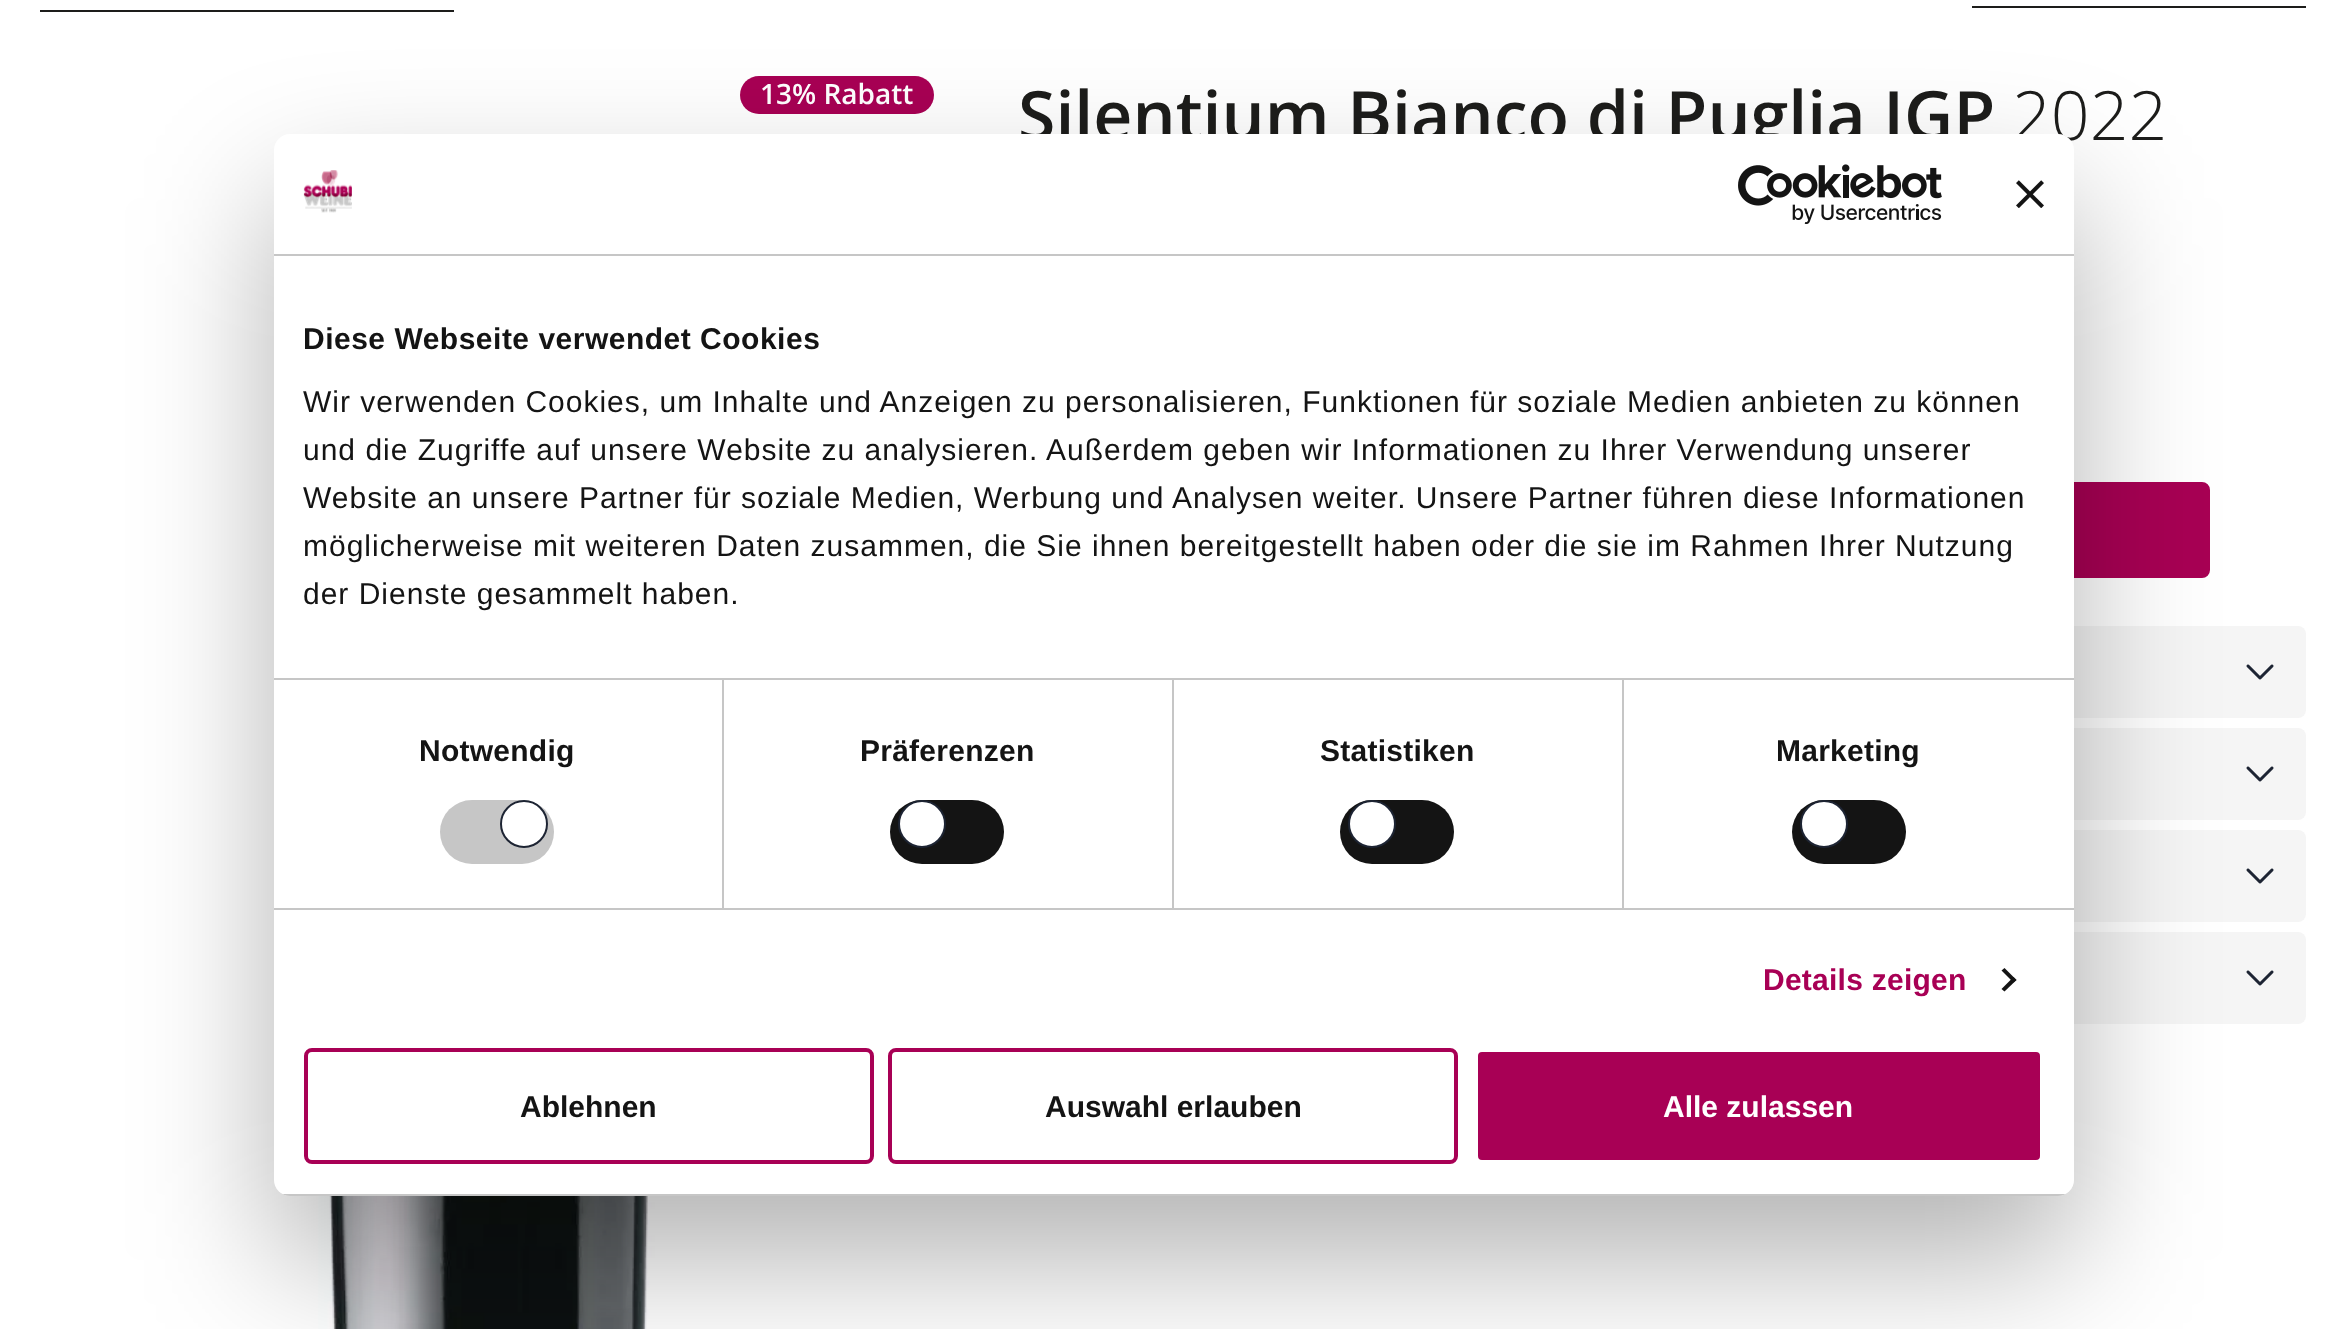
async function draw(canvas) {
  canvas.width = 2345
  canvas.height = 1329
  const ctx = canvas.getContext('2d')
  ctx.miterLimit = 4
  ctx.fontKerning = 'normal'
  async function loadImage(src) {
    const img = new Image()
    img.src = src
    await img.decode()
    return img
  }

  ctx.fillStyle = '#fff'
  ctx.fillRect(0, 0, 2345, 1329)
  ctx.fillStyle = '#1d1d1b'
  ctx.fillRect(1972, 6, 334, 2)
  ctx.fillRect(40, 10, 414, 2)
  ctx.fillStyle = '#a80054'
  ctx.beginPath()
  ctx.roundRect(740, 76, 194, 38, 19)
  ctx.fill()
  ctx.font = '600 28px Open Sans'
  ctx.fillStyle = '#fff'
  ctx.fillText('13% Rabatt', 760, 104)
  ctx.drawImage(await loadImage('image0.png'), 318, 1196, 342, 133)
  ctx.font = '600 68px Open Sans'
  ctx.fillStyle = '#1d1d1b'
  ctx.fillText('Silentium Bianco di Puglia IGP', 1018, 140)
  ctx.font = '300 68px Open Sans'
  ctx.fillText('2022', 2012, 140)
  ctx.fillStyle = '#a80054'
  ctx.beginPath()
  ctx.roundRect(1311, 483, 898, 94, 7)
  ctx.fill()
  ctx.strokeStyle = '#a80054'
  ctx.lineWidth = 2
  ctx.stroke()
  ctx.fillStyle = '#f5f5f5'
  ctx.beginPath()
  ctx.roundRect(1018, 626, 1288, 92, 8)
  ctx.fill()
  ctx.drawImage(await loadImage('image1.png'), 2246, 664, 28, 16)
  ctx.beginPath()
  ctx.roundRect(1018, 728, 1288, 92, 8)
  ctx.fill()
  ctx.drawImage(await loadImage('image1.png'), 2246, 766, 28, 16)
  ctx.beginPath()
  ctx.roundRect(1018, 830, 1288, 92, 8)
  ctx.fill()
  ctx.drawImage(await loadImage('image1.png'), 2246, 868, 28, 16)
  ctx.beginPath()
  ctx.roundRect(1018, 932, 1288, 92, 8)
  ctx.fill()
  ctx.drawImage(await loadImage('image1.png'), 2246, 970, 28, 16)
  ctx.fillStyle = '#0000004d'
  ctx.filter = 'blur(68px)'
  ctx.beginPath()
  ctx.roundRect(274, 198, 1800, 1062, 16)
  ctx.fill()
  ctx.filter = 'none'
  ctx.fillStyle = '#fff'
  ctx.beginPath()
  ctx.roundRect(274, 134, 1800, 1062, 16)
  ctx.fill()
  ctx.fillStyle = '#c6c6c6'
  ctx.fillRect(274, 254, 1800, 2)
  ctx.drawImage(await loadImage('image2.png'), 303, 170, 49, 43)
  ctx.drawImage(await loadImage('image3.png'), 1738, 164, 204, 60)
  ctx.drawImage(await loadImage('image4.png'), 2016, 180, 28, 28)
  ctx.fillRect(274, 678, 1800, 2)
  ctx.letterSpacing = '0.5px'
  ctx.font = 'bold 30px Liberation Sans'
  ctx.fillStyle = '#141414'
  ctx.fillText('Diese Webseite verwendet Cookies', 303, 349)
  ctx.letterSpacing = '1px'
  ctx.font = '30px Liberation Sans'
  ctx.fillText('Wir verwenden Cookies, um Inhalte und Anzeigen zu personalisieren, Funktionen für soziale Medien anbieten zu können', 303, 412)
  ctx.fillText('und die Zugriffe auf unsere Website zu analysieren. Außerdem geben wir Informationen zu Ihrer Verwendung unserer', 303, 460)
  ctx.fillText('Website an unsere Partner für soziale Medien, Werbung und Analysen weiter. Unsere Partner führen diese Informationen', 303, 508)
  ctx.fillText('möglicherweise mit weiteren Daten zusammen, die Sie ihnen bereitgestellt haben oder die sie im Rahmen Ihrer Nutzung', 303, 556)
  ctx.fillText('der Dienste gesammelt haben.', 303, 604)
  ctx.fillStyle = '#c6c6c6'
  ctx.fillRect(274, 908, 1800, 2)
  ctx.fillRect(722, 680, 2, 228)
  ctx.letterSpacing = '0.25px'
  ctx.font = 'bold 30px Liberation Sans'
  ctx.fillStyle = '#141414'
  ctx.fillText('Notwendig', 419, 761)
  ctx.fillStyle = '#c6c6c6'
  ctx.beginPath()
  ctx.roundRect(440, 800, 114, 64, 32)
  ctx.fill()
  ctx.fillStyle = '#fff'
  ctx.beginPath()
  ctx.arc(524, 824, 23, 0, 2 * Math.PI)
  ctx.fill()
  ctx.strokeStyle = '#1d2433'
  ctx.stroke()
  ctx.fillStyle = '#c6c6c6'
  ctx.fillRect(1172, 680, 2, 228)
  ctx.fillStyle = '#141414'
  ctx.fillText('Präferenzen', 860, 761)
  ctx.beginPath()
  ctx.roundRect(890, 800, 114, 64, 32)
  ctx.fill()
  ctx.fillStyle = '#fff'
  ctx.beginPath()
  ctx.arc(922, 824, 23, 0, 2 * Math.PI)
  ctx.fill()
  ctx.stroke()
  ctx.fillStyle = '#c6c6c6'
  ctx.fillRect(1622, 680, 2, 228)
  ctx.fillStyle = '#141414'
  ctx.fillText('Statistiken', 1320, 761)
  ctx.beginPath()
  ctx.roundRect(1340, 800, 114, 64, 32)
  ctx.fill()
  ctx.fillStyle = '#fff'
  ctx.beginPath()
  ctx.arc(1372, 824, 23, 0, 2 * Math.PI)
  ctx.fill()
  ctx.stroke()
  ctx.fillStyle = '#141414'
  ctx.fillText('Marketing', 1776, 761)
  ctx.beginPath()
  ctx.roundRect(1792, 800, 114, 64, 32)
  ctx.fill()
  ctx.fillStyle = '#fff'
  ctx.beginPath()
  ctx.arc(1824, 824, 23, 0, 2 * Math.PI)
  ctx.fill()
  ctx.stroke()
  ctx.fillStyle = '#a80055'
  ctx.fillText('Details zeigen', 1763, 990)
  ctx.fillStyle = '#141414'
  ctx.beginPath()
  ctx.moveTo(2004.5, 968)
  ctx.lineTo(2016.5, 980)
  ctx.lineTo(2013.5, 982.5)
  ctx.lineTo(2001.5, 970.5)
  ctx.closePath()
  ctx.fill()
  ctx.beginPath()
  ctx.moveTo(2013.5, 977)
  ctx.lineTo(2016.5, 980)
  ctx.lineTo(2004.5, 991.5)
  ctx.lineTo(2001.5, 989)
  ctx.closePath()
  ctx.fill()
  ctx.save()
  ctx.beginPath()
  ctx.roundRect(274, 134, 1800, 1062, 16)
  ctx.clip()
  ctx.fillStyle = '#c6c6c6'
  ctx.fillRect(274, 1194, 1800, 2)
  ctx.restore()
  ctx.beginPath()
  ctx.roundRect(306, 1050, 566, 112, 6)
  ctx.strokeStyle = '#a80055'
  ctx.lineWidth = 4
  ctx.stroke()
  ctx.letterSpacing = '0px'
  ctx.fillText('Ablehnen', 520, 1117)
  ctx.beginPath()
  ctx.roundRect(890, 1050, 566, 112, 6)
  ctx.stroke()
  ctx.fillText('Auswahl erlauben', 1045, 1117)
  ctx.fillStyle = '#a80055'
  ctx.beginPath()
  ctx.roundRect(1476, 1050, 566, 112, 6)
  ctx.fill()
  ctx.strokeStyle = '#fff'
  ctx.stroke()
  ctx.fillStyle = '#fff'
  ctx.fillText('Alle zulassen', 1663, 1117)
}

draw(document.querySelector('canvas'))
